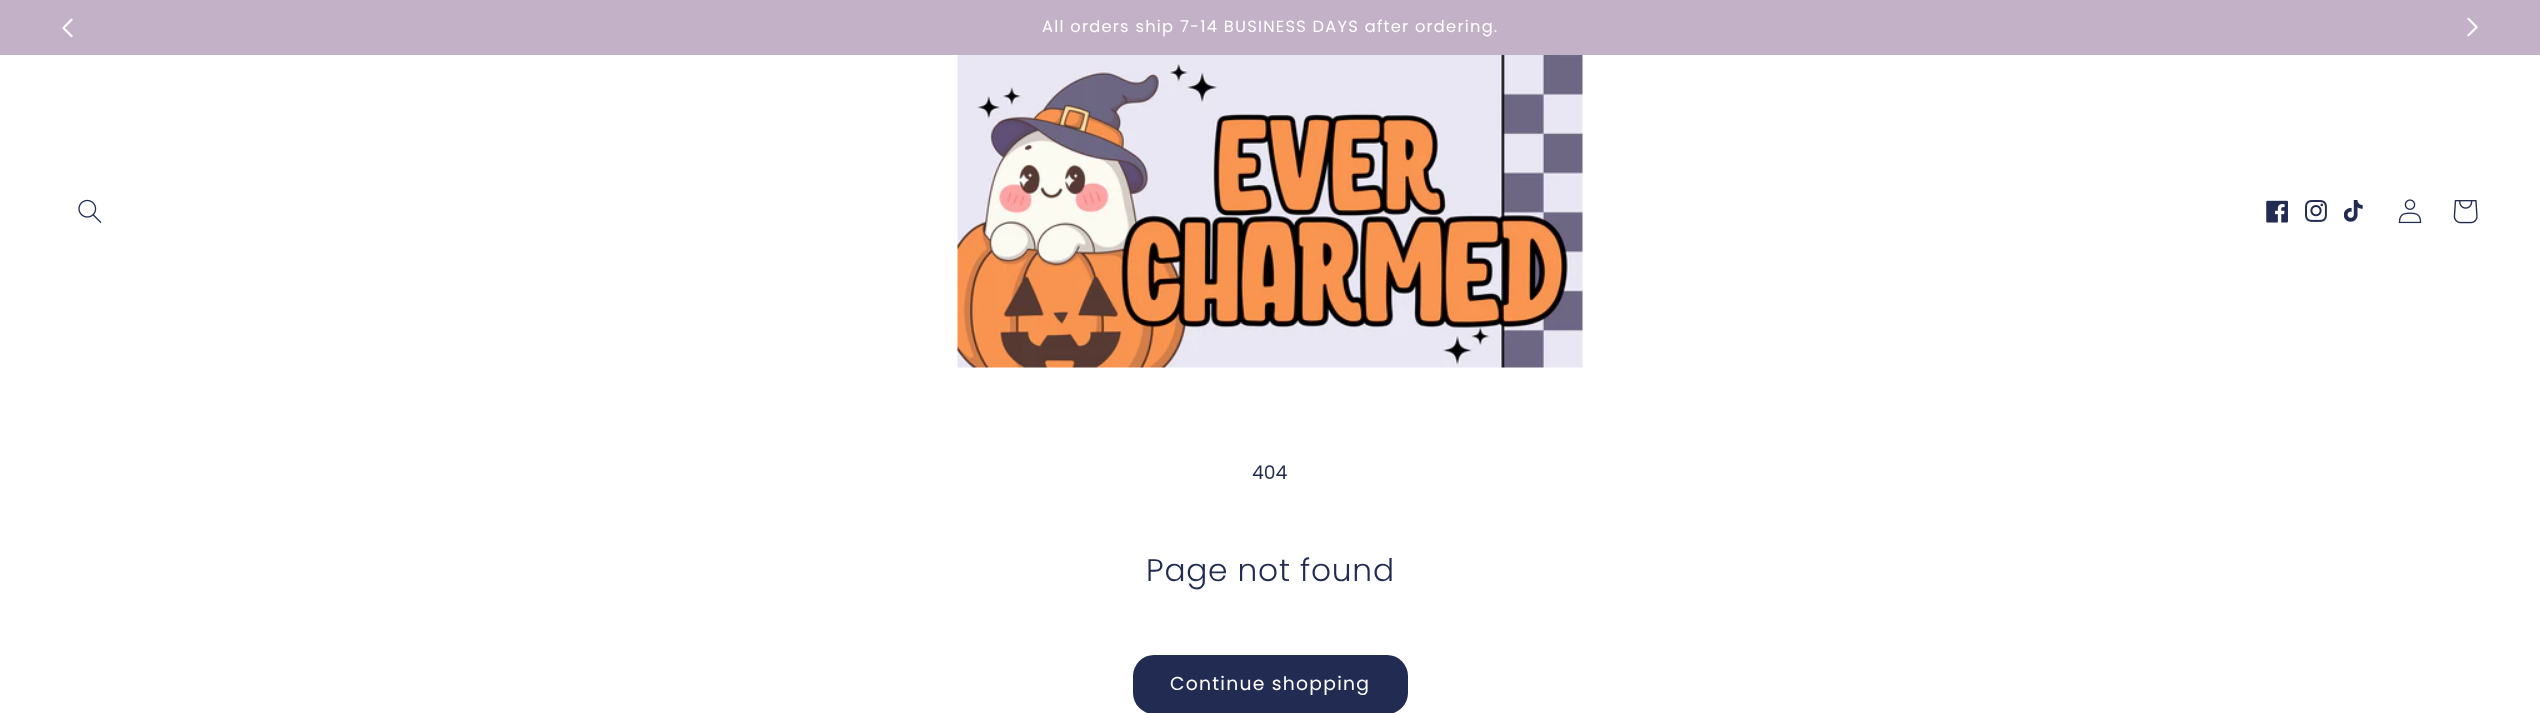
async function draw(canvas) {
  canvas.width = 2540
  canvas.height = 713
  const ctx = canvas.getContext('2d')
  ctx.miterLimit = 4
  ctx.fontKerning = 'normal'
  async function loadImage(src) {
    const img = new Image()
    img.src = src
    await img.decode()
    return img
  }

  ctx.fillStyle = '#fff'
  ctx.fillRect(0, 0, 2540, 713)
  ctx.fillStyle = '#c2b1c7'
  ctx.fillRect(0, 0, 2540, 55)
  ctx.drawImage(await loadImage('image0.png'), 62, 18, 11, 20)
  ctx.letterSpacing = '1.25px'
  ctx.font = '16.25px Poppins'
  ctx.fillStyle = '#fff'
  ctx.fillText('All orders ship 7-14 BUSINESS DAYS after ordering.', 1042, 32)
  ctx.drawImage(await loadImage('image1.png'), 2467, 17, 11, 20)
  ctx.drawImage(await loadImage('image2.png'), 78, 199, 24, 24)
  ctx.drawImage(await loadImage('image3.png'), 957, 55, 626, 313)
  ctx.drawImage(await loadImage('image4.png'), 2266, 200, 22, 23)
  ctx.drawImage(await loadImage('image5.png'), 2305, 200, 22, 22)
  ctx.drawImage(await loadImage('image6.png'), 2344, 200, 19, 22)
  ctx.drawImage(await loadImage('image7.png'), 2398, 199, 24, 25)
  ctx.drawImage(await loadImage('image8.png'), 2453, 200, 25, 24)
  ctx.letterSpacing = '0px'
  ctx.font = '18.75px Poppins'
  ctx.fillStyle = '#222b51'
  ctx.fillText('404', 1252, 479)
  ctx.letterSpacing = '0.75px'
  ctx.font = '300 31.25px Poppins'
  ctx.fillText('Page not found', 1146, 581)
  ctx.beginPath()
  ctx.roundRect(1133, 655, 275, 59, 21)
  ctx.fill()
  ctx.letterSpacing = '1.25px'
  ctx.font = '18.75px Poppins'
  ctx.fillStyle = '#fff'
  ctx.fillText('Continue shopping', 1170, 690)
}

draw(document.querySelector('canvas'))
